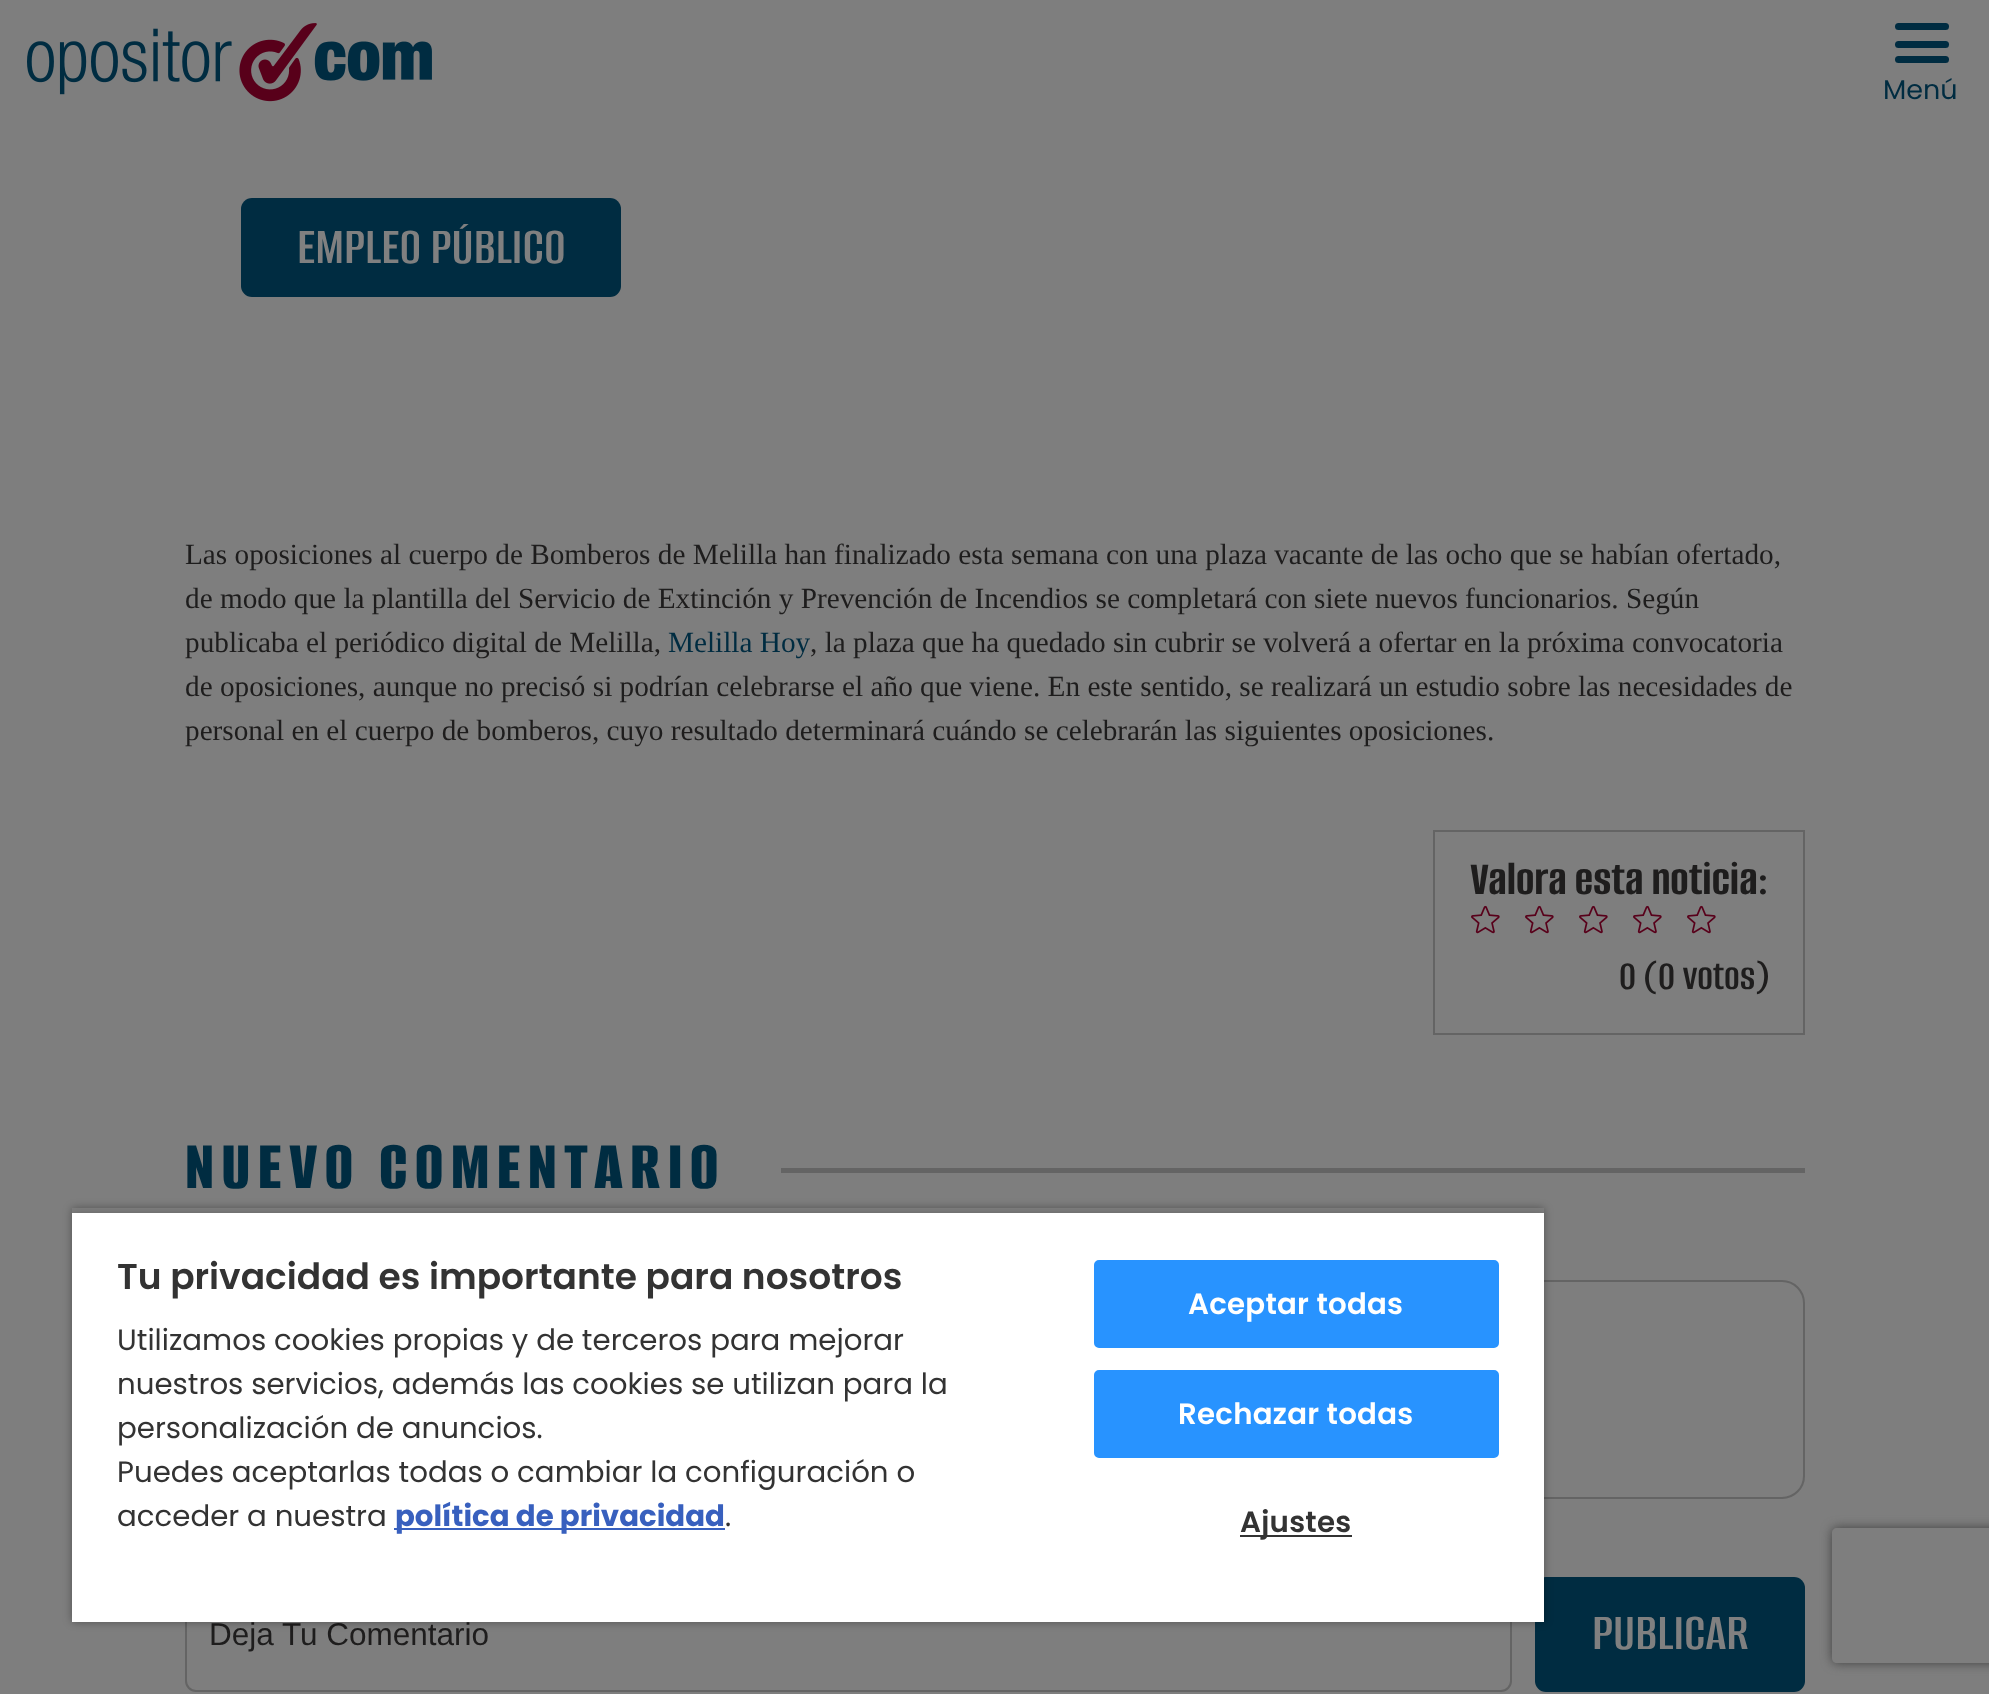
async function draw(canvas) {
  canvas.width = 1989
  canvas.height = 1694
  const ctx = canvas.getContext('2d')
  ctx.miterLimit = 4
  ctx.fontKerning = 'normal'
  async function loadImage(src) {
    const img = new Image()
    img.src = src
    await img.decode()
    return img
  }

  ctx.fillStyle = '#7e7e7e'
  ctx.fillRect(0, 0, 1989, 1694)
  ctx.drawImage(await loadImage('image0.png'), 27, 23, 405, 79)
  ctx.fillStyle = '#002c41'
  ctx.beginPath()
  ctx.roundRect(1895, 23, 54, 7, 3.5)
  ctx.fill()
  ctx.beginPath()
  ctx.roundRect(1895, 41, 54, 7, 3.5)
  ctx.fill()
  ctx.beginPath()
  ctx.roundRect(1895, 56, 54, 7, 3.5)
  ctx.fill()
  ctx.font = '27px Poppins'
  ctx.fillText('Menú', 1883, 99)
  ctx.beginPath()
  ctx.roundRect(241, 198, 380, 99, 11)
  ctx.fill()
  ctx.font = '100 54px "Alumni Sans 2"'
  ctx.fillStyle = '#808080'
  ctx.fillText('EMPLEO PÚBLICO', 297, 263)
  ctx.font = '29.25px Liberation Serif'
  ctx.fillStyle = '#1e1d1d'
  ctx.fillText('Las oposiciones al cuerpo de Bomberos de Melilla han finalizado esta semana con una plaza vacante de las ocho que se habían ofertado,', 185, 564)
  ctx.fillText('de modo que la plantilla del Servicio de Extinción y Prevención de Incendios se completará con siete nuevos funcionarios. Según', 185, 608)
  ctx.fillText('publicaba el periódico digital de Melilla,', 185, 652)
  ctx.fillStyle = '#002c41'
  ctx.fillText('Melilla Hoy', 668, 652)
  ctx.fillStyle = '#1e1d1d'
  ctx.fillText(', la plaza que ha quedado sin cubrir se volverá a ofertar en la próxima convocatoria', 810, 652)
  ctx.fillText('de oposiciones, aunque no precisó si podrían celebrarse el año que viene. En este sentido, se realizará un estudio sobre las necesidades de', 185, 696)
  ctx.fillText('personal en el cuerpo de bomberos, cuyo resultado determinará cuándo se celebrarán las siguientes oposiciones.', 185, 740)
  ctx.strokeStyle = '#646464'
  ctx.lineWidth = 2
  ctx.strokeRect(1434, 831, 370, 203)
  ctx.font = '100 49.5px Alumni Sans'
  ctx.fillText('Valora esta noticia:', 1470, 894)
  ctx.drawImage(await loadImage('image1.png'), 1471, 905, 29, 29)
  ctx.drawImage(await loadImage('image1.png'), 1525, 905, 29, 29)
  ctx.drawImage(await loadImage('image1.png'), 1579, 905, 29, 29)
  ctx.drawImage(await loadImage('image1.png'), 1633, 905, 29, 29)
  ctx.drawImage(await loadImage('image1.png'), 1687, 905, 29, 29)
  ctx.font = '100 43px "Alumni Sans 2"'
  ctx.fillText('0 (0 votos)', 1619, 989)
  ctx.letterSpacing = '7.25px'
  ctx.font = '100 72px "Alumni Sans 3"'
  ctx.fillStyle = '#002c41'
  ctx.fillText('NUEVO COMENTARIO', 185, 1188)
  ctx.fillStyle = '#646464'
  ctx.fillRect(781, 1168, 1024, 5)
  ctx.beginPath()
  ctx.roundRect(186, 1281, 1618, 217, 22)
  ctx.stroke()
  ctx.beginPath()
  ctx.roundRect(186, 1578, 1325, 113, 10)
  ctx.stroke()
  ctx.letterSpacing = '0px'
  ctx.font = '31.5px Liberation Sans'
  ctx.fillStyle = '#1e1d1d'
  ctx.fillText('Deja Tu Comentario', 209, 1645)
  ctx.fillStyle = '#002c41'
  ctx.beginPath()
  ctx.roundRect(1535, 1577, 270, 115, 11)
  ctx.fill()
  ctx.font = '100 54px "Alumni Sans 2"'
  ctx.fillStyle = '#808080'
  ctx.fillText('PUBLICAR', 1592, 1649)
  ctx.save()
  ctx.beginPath()
  ctx.moveTo(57, 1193)
  ctx.lineTo(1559, 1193)
  ctx.lineTo(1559, 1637)
  ctx.lineTo(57, 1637)
  ctx.closePath()
  ctx.moveTo(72, 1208)
  ctx.lineTo(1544, 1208)
  ctx.lineTo(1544, 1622)
  ctx.lineTo(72, 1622)
  ctx.closePath()
  ctx.clip('evenodd')
  ctx.fillStyle = '#00000059'
  ctx.filter = 'blur(4.5px)'
  ctx.beginPath()
  ctx.rect(72, 1208, 1472, 414)
  ctx.fill()
  ctx.filter = 'none'
  ctx.restore()
  ctx.save()
  ctx.beginPath()
  ctx.rect(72, 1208, 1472, 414)
  ctx.clip()
  ctx.fillStyle = '#00000033'
  ctx.filter = 'blur(4.5px)'
  ctx.beginPath()
  ctx.rect(72, 1213, 1472, 409)
  ctx.fill()
  ctx.filter = 'none'
  ctx.restore()
  ctx.fillStyle = '#fff'
  ctx.fillRect(72, 1213, 1472, 409)
  ctx.font = '600 36px Poppins'
  ctx.fillStyle = '#333'
  ctx.fillText('Tu privacidad es importante para nosotros', 117, 1289)
  ctx.font = '29.25px Poppins'
  ctx.fillText('Utilizamos cookies propias y de terceros para mejorar', 117, 1350)
  ctx.fillText('nuestros servicios, además las cookies se utilizan para la', 117, 1394)
  ctx.fillText('personalización de anuncios.', 117, 1438)
  ctx.fillText('Puedes aceptarlas todas o cambiar la configuración o', 117, 1482)
  ctx.fillText('acceder a nuestra', 117, 1526)
  ctx.fillStyle = '#3860be'
  ctx.fillRect(394, 1528, 331, 2)
  ctx.font = 'bold 29.25px Poppins'
  ctx.fillText('política de privacidad', 395, 1526)
  ctx.font = '29.25px Poppins'
  ctx.fillStyle = '#333'
  ctx.fillText('.', 725, 1526)
  ctx.fillStyle = '#2893ff'
  ctx.beginPath()
  ctx.roundRect(1095, 1261, 403, 86, 4)
  ctx.fill()
  ctx.strokeStyle = '#2893ff'
  ctx.stroke()
  ctx.letterSpacing = '0.25px'
  ctx.font = '600 29.25px Poppins'
  ctx.fillStyle = '#fff'
  ctx.fillText('Aceptar todas', 1188, 1314)
  ctx.fillStyle = '#2893ff'
  ctx.beginPath()
  ctx.roundRect(1095, 1371, 403, 86, 4)
  ctx.fill()
  ctx.stroke()
  ctx.fillStyle = '#fff'
  ctx.fillText('Rechazar todas', 1178, 1424)
  ctx.fillStyle = '#333'
  ctx.fillRect(1240, 1535, 112, 2)
  ctx.fillText('Ajustes', 1240, 1532)
  ctx.save()
  ctx.beginPath()
  ctx.moveTo(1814, 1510)
  ctx.lineTo(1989, 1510)
  ctx.lineTo(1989, 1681)
  ctx.lineTo(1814, 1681)
  ctx.closePath()
  ctx.moveTo(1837, 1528)
  ctx.lineTo(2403, 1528)
  ctx.bezierCurveTo(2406, 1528, 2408, 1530, 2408, 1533)
  ctx.lineTo(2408, 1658)
  ctx.bezierCurveTo(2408, 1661, 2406, 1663, 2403, 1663)
  ctx.lineTo(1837, 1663)
  ctx.bezierCurveTo(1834, 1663, 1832, 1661, 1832, 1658)
  ctx.lineTo(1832, 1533)
  ctx.bezierCurveTo(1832, 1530, 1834, 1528, 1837, 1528)
  ctx.closePath()
  ctx.clip('evenodd')
  ctx.fillStyle = '#404040'
  ctx.filter = 'blur(5.5px)'
  ctx.beginPath()
  ctx.roundRect(1832, 1528, 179, 135, 5)
  ctx.fill()
  ctx.filter = 'none'
  ctx.restore()
}

draw(document.querySelector('canvas'))
